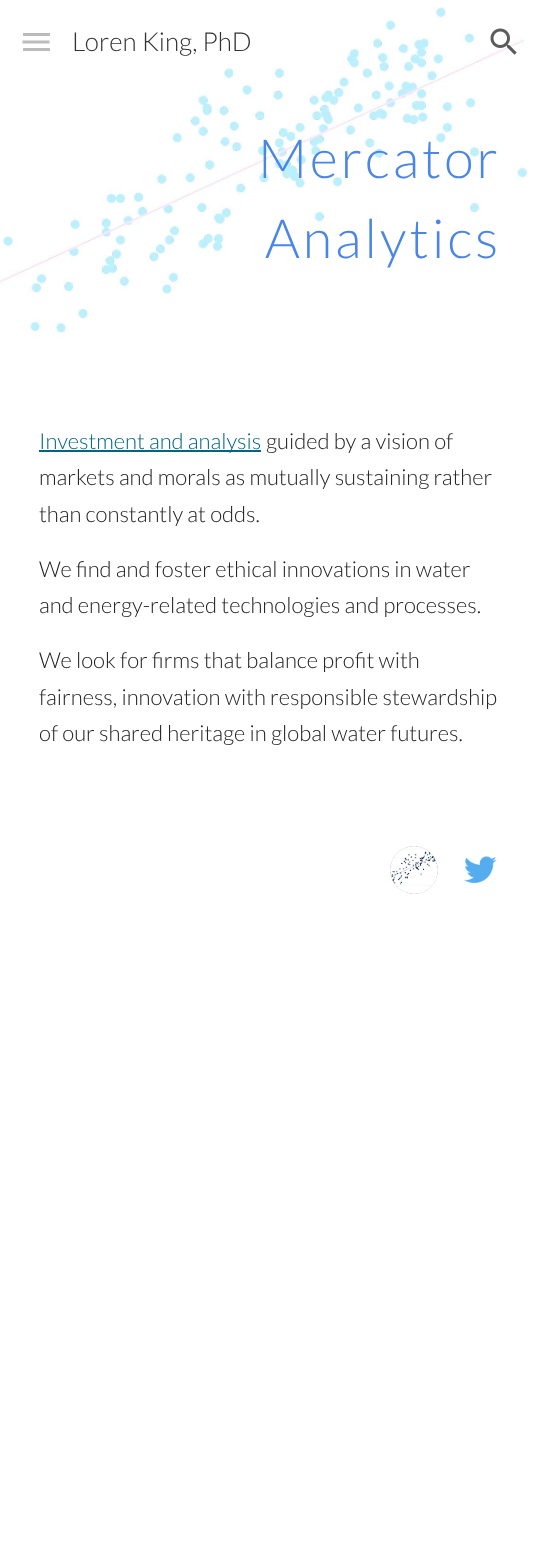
async function draw(canvas) {
  canvas.width = 539
  canvas.height = 1567
  const ctx = canvas.getContext('2d')
  ctx.miterLimit = 4
  ctx.fontKerning = 'normal'
  async function loadImage(src) {
    const img = new Image()
    img.src = src
    await img.decode()
    return img
  }

  ctx.fillStyle = '#fff'
  ctx.fillRect(0, 0, 539, 1567)
  ctx.drawImage(await loadImage('image1.png'), 0, 0, 539, 375)
  ctx.fillStyle = '#b2b2b2'
  ctx.fillRect(23, 33, 27, 3)
  ctx.beginPath()
  ctx.moveTo(22.5, 42)
  ctx.lineTo(49.5, 42)
  ctx.strokeStyle = '#b2b2b2'
  ctx.lineWidth = 3
  ctx.stroke()
  ctx.fillRect(23, 48, 27, 3)
  ctx.fillStyle = '#ffffff1f'
  ctx.fillRect(22, 33, 28, 18)
  ctx.font = '300 26px Lato'
  ctx.fillStyle = '#333'
  ctx.fillText('Loren King, PhD', 72, 51)
  ctx.drawImage(await loadImage('image0.png'), 490, 28, 27, 27)
  ctx.letterSpacing = '3px'
  ctx.font = '300 54px Lato'
  ctx.fillStyle = '#4a86e8'
  ctx.fillText('Mercator', 258, 178)
  ctx.fillText('Analytics', 265, 258)
  ctx.fillStyle = '#006580'
  ctx.fillRect(39, 450, 222, 2)
  ctx.letterSpacing = '0px'
  ctx.font = '300 22px Lato'
  ctx.fillText('Investment and analysis', 39, 449)
  ctx.fillStyle = '#212121'
  ctx.fillText('guided by a vision of', 266, 449)
  ctx.fillText('markets and morals as mutually sustaining rather', 39, 485)
  ctx.fillText('than constantly at odds.', 39, 522)
  ctx.fillText('We find and foster ethical innovations in water', 39, 577)
  ctx.fillText('and energy-related technologies and processes.', 39, 613)
  ctx.fillText('We look for firms that balance profit with', 39, 668)
  ctx.fillText('fairness, innovation with responsible stewardship', 39, 705)
  ctx.fillText('of our shared heritage in global water futures.', 39, 741)
  ctx.drawImage(await loadImage('image2.png'), 390, 846, 48, 48)
  ctx.drawImage(await loadImage('image3.png'), 464, 856, 33, 28)
}

draw(document.querySelector('canvas'))
